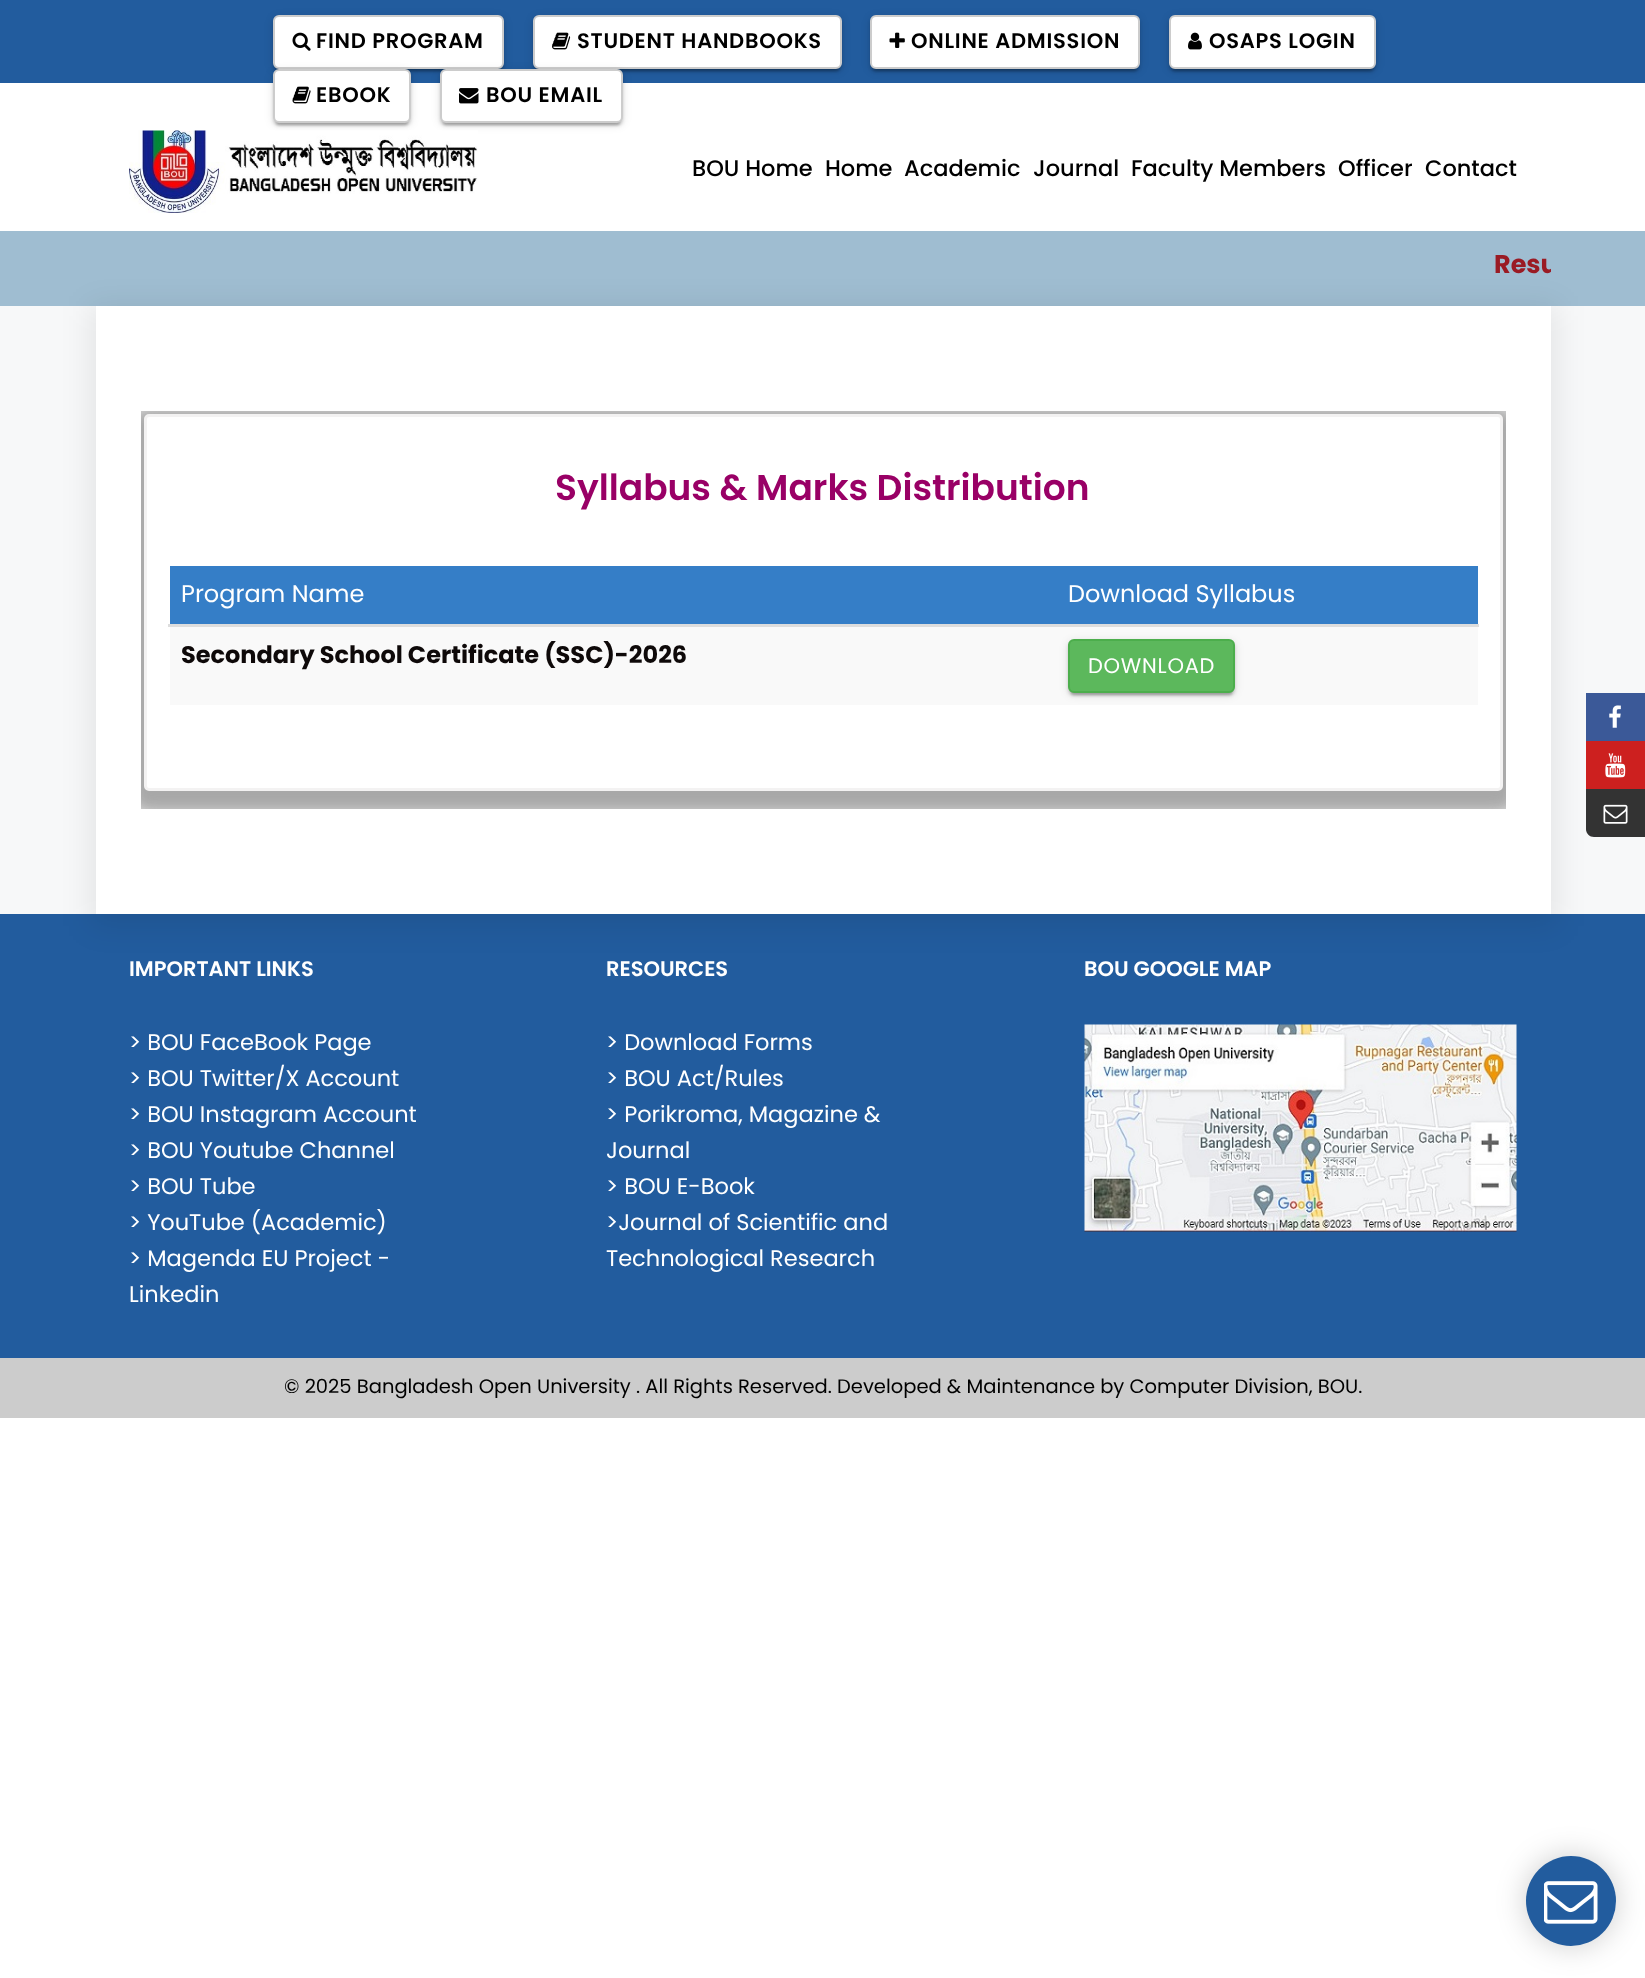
async function draw(canvas) {
  canvas.width = 1645
  canvas.height = 1978
  const ctx = canvas.getContext('2d')
  ctx.miterLimit = 4
  ctx.fontKerning = 'normal'
  async function loadImage(src) {
    const img = new Image()
    img.src = src
    await img.decode()
    return img
  }

  ctx.fillStyle = '#fff'
  ctx.fillRect(0, 0, 1645, 1978)
  ctx.fillStyle = '#225c9e'
  ctx.fillRect(0, 0, 1645, 83)
  ctx.fillStyle = '#00000033'
  ctx.filter = 'blur(1px)'
  ctx.beginPath()
  ctx.roundRect(276, 23, 225, 48, 3)
  ctx.fill()
  ctx.filter = 'none'
  ctx.fillStyle = '#0000001f'
  ctx.filter = 'blur(4px)'
  ctx.beginPath()
  ctx.roundRect(273, 17, 231, 54, 6)
  ctx.fill()
  ctx.filter = 'none'
  ctx.fillStyle = '#00000024'
  ctx.filter = 'blur(1.5px)'
  ctx.beginPath()
  ctx.roundRect(273, 18, 231, 54, 6)
  ctx.fill()
  ctx.filter = 'none'
  ctx.fillStyle = '#fff'
  ctx.beginPath()
  ctx.roundRect(274, 16, 229, 52, 5)
  ctx.fill()
  ctx.strokeStyle = '#ccc'
  ctx.lineWidth = 2
  ctx.stroke()
  ctx.drawImage(await loadImage('image0.png'), 292, 32, 19, 19)
  ctx.letterSpacing = '0.75px'
  ctx.font = '600 21px Poppins'
  ctx.fillStyle = '#000'
  ctx.fillText('FIND PROGRAM', 316, 48)
  ctx.fillStyle = '#00000033'
  ctx.filter = 'blur(1px)'
  ctx.beginPath()
  ctx.roundRect(536, 23, 303, 48, 3)
  ctx.fill()
  ctx.filter = 'none'
  ctx.fillStyle = '#0000001f'
  ctx.filter = 'blur(4px)'
  ctx.beginPath()
  ctx.roundRect(533, 17, 309, 54, 6)
  ctx.fill()
  ctx.filter = 'none'
  ctx.fillStyle = '#00000024'
  ctx.filter = 'blur(1.5px)'
  ctx.beginPath()
  ctx.roundRect(533, 18, 309, 54, 6)
  ctx.fill()
  ctx.filter = 'none'
  ctx.fillStyle = '#fff'
  ctx.beginPath()
  ctx.roundRect(534, 16, 307, 52, 5)
  ctx.fill()
  ctx.stroke()
  ctx.drawImage(await loadImage('image1.png'), 552, 32, 19, 18)
  ctx.fillStyle = '#000'
  ctx.fillText('STUDENT HANDBOOKS', 577, 48)
  ctx.fillStyle = '#00000033'
  ctx.filter = 'blur(1px)'
  ctx.beginPath()
  ctx.roundRect(873, 23, 264, 48, 3)
  ctx.fill()
  ctx.filter = 'none'
  ctx.fillStyle = '#0000001f'
  ctx.filter = 'blur(4px)'
  ctx.beginPath()
  ctx.roundRect(870, 17, 270, 54, 6)
  ctx.fill()
  ctx.filter = 'none'
  ctx.fillStyle = '#00000024'
  ctx.filter = 'blur(1.5px)'
  ctx.beginPath()
  ctx.roundRect(870, 18, 270, 54, 6)
  ctx.fill()
  ctx.filter = 'none'
  ctx.fillStyle = '#fff'
  ctx.beginPath()
  ctx.roundRect(871, 16, 268, 52, 5)
  ctx.fill()
  ctx.stroke()
  ctx.drawImage(await loadImage('image2.png'), 889, 32, 16, 16)
  ctx.fillStyle = '#000'
  ctx.fillText('ONLINE ADMISSION', 911, 48)
  ctx.fillStyle = '#00000033'
  ctx.filter = 'blur(1px)'
  ctx.beginPath()
  ctx.roundRect(1172, 23, 201, 48, 3)
  ctx.fill()
  ctx.filter = 'none'
  ctx.fillStyle = '#0000001f'
  ctx.filter = 'blur(4px)'
  ctx.beginPath()
  ctx.roundRect(1169, 17, 207, 54, 6)
  ctx.fill()
  ctx.filter = 'none'
  ctx.fillStyle = '#00000024'
  ctx.filter = 'blur(1.5px)'
  ctx.beginPath()
  ctx.roundRect(1169, 18, 207, 54, 6)
  ctx.fill()
  ctx.filter = 'none'
  ctx.fillStyle = '#fff'
  ctx.beginPath()
  ctx.roundRect(1170, 16, 205, 52, 5)
  ctx.fill()
  ctx.stroke()
  ctx.drawImage(await loadImage('image3.png'), 1188, 32, 14, 18)
  ctx.fillStyle = '#000'
  ctx.fillText('OSAPS LOGIN', 1209, 48)
  ctx.fillStyle = '#00000033'
  ctx.filter = 'blur(1px)'
  ctx.beginPath()
  ctx.roundRect(276, 77, 132, 48, 3)
  ctx.fill()
  ctx.filter = 'none'
  ctx.fillStyle = '#0000001f'
  ctx.filter = 'blur(4px)'
  ctx.beginPath()
  ctx.roundRect(273, 71, 138, 54, 6)
  ctx.fill()
  ctx.filter = 'none'
  ctx.fillStyle = '#00000024'
  ctx.filter = 'blur(1.5px)'
  ctx.beginPath()
  ctx.roundRect(273, 72, 138, 54, 6)
  ctx.fill()
  ctx.filter = 'none'
  ctx.fillStyle = '#fff'
  ctx.beginPath()
  ctx.roundRect(274, 70, 136, 52, 5)
  ctx.fill()
  ctx.stroke()
  ctx.drawImage(await loadImage('image4.png'), 292, 86, 19, 18)
  ctx.fillStyle = '#000'
  ctx.fillText('EBOOK', 316, 102)
  ctx.fillStyle = '#00000033'
  ctx.filter = 'blur(1px)'
  ctx.beginPath()
  ctx.roundRect(443, 77, 177, 48, 3)
  ctx.fill()
  ctx.filter = 'none'
  ctx.fillStyle = '#0000001f'
  ctx.filter = 'blur(4px)'
  ctx.beginPath()
  ctx.roundRect(440, 71, 183, 54, 6)
  ctx.fill()
  ctx.filter = 'none'
  ctx.fillStyle = '#00000024'
  ctx.filter = 'blur(1.5px)'
  ctx.beginPath()
  ctx.roundRect(440, 72, 183, 54, 6)
  ctx.fill()
  ctx.filter = 'none'
  ctx.fillStyle = '#fff'
  ctx.beginPath()
  ctx.roundRect(441, 70, 181, 52, 5)
  ctx.fill()
  ctx.stroke()
  ctx.drawImage(await loadImage('image5.png'), 459, 88, 20, 16)
  ctx.fillStyle = '#000'
  ctx.fillText('BOU EMAIL', 486, 102)
  ctx.drawImage(await loadImage('image6.png'), 129, 130, 349, 83)
  ctx.letterSpacing = '0px'
  ctx.font = '500 22.5px Poppins'
  ctx.fillText('BOU Home', 692, 176)
  ctx.fillText('Home', 825, 176)
  ctx.fillText('Academic', 904, 176)
  ctx.fillText('Journal', 1033, 176)
  ctx.fillText('Faculty Members', 1131, 176)
  ctx.fillText('Officer', 1338, 176)
  ctx.fillText('Contact', 1425, 176)
  ctx.fillStyle = '#9fbdd1'
  ctx.fillRect(0, 231, 1645, 75)
  ctx.save()
  ctx.beginPath()
  ctx.rect(96, 246, 1455, 66)
  ctx.clip()
  ctx.font = 'bold 25.5px Poppins'
  ctx.fillStyle = '#9a1b24'
  ctx.fillText('Resu', 1494, 273)
  ctx.restore()
  ctx.fillStyle = '#f7f8f9'
  ctx.fillRect(0, 306, 1645, 608)
  ctx.fillStyle = '#225c9e'
  ctx.fillRect(0, 914, 1645, 444)
  ctx.fillStyle = '#00000014'
  ctx.filter = 'blur(15px)'
  ctx.beginPath()
  ctx.rect(90, 306, 1467, 620)
  ctx.fill()
  ctx.filter = 'none'
  ctx.fillStyle = '#fff'
  ctx.fillRect(96, 306, 1455, 608)
  ctx.fillStyle = '#f1f1f1'
  ctx.fillRect(141, 411, 1365, 398)
  ctx.save()
  ctx.beginPath()
  ctx.rect(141, 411, 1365, 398)
  ctx.clip()
  ctx.fillStyle = '#969696cc'
  ctx.filter = 'blur(7.5px)'
  ctx.beginPath()
  ctx.roundRect(129, 407, 1389, 406, 20)
  ctx.fill()
  ctx.filter = 'none'
  ctx.restore()
  ctx.fillStyle = '#fff'
  ctx.beginPath()
  ctx.roundRect(145.5, 415.5, 1356, 374, 3.5)
  ctx.fill()
  ctx.strokeStyle = '#f3f2f2'
  ctx.lineWidth = 3
  ctx.stroke()
  ctx.font = '600 36px Poppins'
  ctx.fillStyle = '#906'
  ctx.fillText('Syllabus & Marks Distribution', 555, 500)
  ctx.fillStyle = '#357ec7'
  ctx.fillRect(170, 566, 1308, 58)
  ctx.font = '24px Poppins'
  ctx.fillStyle = '#fff'
  ctx.fillText('Program Name', 181, 602)
  ctx.fillStyle = '#ddd'
  ctx.fillRect(168, 624, 1311, 3)
  ctx.fillStyle = '#fff'
  ctx.fillText('Download Syllabus', 1068, 602)
  ctx.fillStyle = '#f9f9f9'
  ctx.fillRect(170, 627, 1308, 78)
  ctx.font = 'bold 24px Poppins'
  ctx.fillStyle = '#0e0909'
  ctx.fillText('Secondary School Certificate (SSC)-2026', 181, 663)
  ctx.fillStyle = '#00000033'
  ctx.filter = 'blur(1px)'
  ctx.beginPath()
  ctx.roundRect(1071, 647, 161, 48, 3)
  ctx.fill()
  ctx.filter = 'none'
  ctx.fillStyle = '#0000001f'
  ctx.filter = 'blur(4px)'
  ctx.beginPath()
  ctx.roundRect(1068, 641, 167, 54, 6)
  ctx.fill()
  ctx.filter = 'none'
  ctx.fillStyle = '#00000024'
  ctx.filter = 'blur(1.5px)'
  ctx.beginPath()
  ctx.roundRect(1068, 642, 167, 54, 6)
  ctx.fill()
  ctx.filter = 'none'
  ctx.fillStyle = '#5cb85c'
  ctx.beginPath()
  ctx.roundRect(1069, 640, 165, 52, 5)
  ctx.fill()
  ctx.strokeStyle = '#4cae4c'
  ctx.lineWidth = 2
  ctx.stroke()
  ctx.letterSpacing = '0.75px'
  ctx.font = '21px Poppins'
  ctx.fillStyle = '#fff'
  ctx.fillText('DOWNLOAD', 1088, 673)
  ctx.fillStyle = '#3b5998'
  ctx.fillRect(1586, 693, 59, 48)
  ctx.drawImage(await loadImage('image7.png'), 1609, 705, 12, 23)
  ctx.fillStyle = '#cd201f'
  ctx.fillRect(1586, 741, 59, 48)
  ctx.drawImage(await loadImage('image8.png'), 1605, 753, 21, 25)
  ctx.fillStyle = '#333'
  ctx.beginPath()
  ctx.moveTo(1586, 789)
  ctx.lineTo(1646, 789)
  ctx.lineTo(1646, 837)
  ctx.lineTo(1594, 837)
  ctx.bezierCurveTo(1589.5, 837, 1586, 833.5, 1586, 829)
  ctx.closePath()
  ctx.fill()
  ctx.drawImage(await loadImage('image9.png'), 1603, 804, 25, 20)
  ctx.letterSpacing = '0px'
  ctx.font = '600 21px Poppins'
  ctx.fillStyle = '#fff'
  ctx.fillText('IMPORTANT LINKS', 129, 976)
  ctx.font = '22.5px Poppins'
  ctx.fillText('> BOU FaceBook Page', 129, 1050)
  ctx.fillText('> BOU Twitter/X Account', 129, 1086)
  ctx.fillText('> BOU Instagram Account', 129, 1122)
  ctx.fillText('> BOU Youtube Channel', 129, 1158)
  ctx.fillText('> BOU Tube', 129, 1194)
  ctx.fillText('> YouTube (Academic)', 129, 1230)
  ctx.fillText('> Magenda EU Project -', 129, 1266)
  ctx.fillText('Linkedin', 129, 1302)
  ctx.font = '600 21px Poppins'
  ctx.fillText('RESOURCES', 606, 976)
  ctx.font = '22.5px Poppins'
  ctx.fillText('> Download Forms', 606, 1050)
  ctx.fillText('> BOU Act/Rules', 606, 1086)
  ctx.fillText('> Porikroma, Magazine &', 606, 1122)
  ctx.fillText('Journal', 606, 1158)
  ctx.fillText('> BOU E-Book', 606, 1194)
  ctx.fillText('>Journal of Scientific and', 606, 1230)
  ctx.fillText('Technological Research', 606, 1266)
  ctx.font = '600 21px Poppins'
  ctx.fillText('BOU GOOGLE MAP', 1084, 976)
  ctx.drawImage(await loadImage('image10.png'), 1084, 1024, 433, 208)
  ctx.fillStyle = '#ccc'
  ctx.fillRect(0, 1358, 1645, 60)
  ctx.font = '19.5px Poppins'
  ctx.fillStyle = '#000'
  ctx.fillText('© 2025 Bangladesh Open University . All Rights Reserved. Developed & Maintenance by Computer Division, BOU.', 284, 1393)
  ctx.fillStyle = '#00000033'
  ctx.filter = 'blur(15px)'
  ctx.beginPath()
  ctx.roundRect(1526, 1856, 90, 90, 45)
  ctx.fill()
  ctx.filter = 'none'
  ctx.fillStyle = '#225c9e'
  ctx.beginPath()
  ctx.arc(1571, 1901, 45, 0, 2 * Math.PI)
  ctx.fill()
  ctx.drawImage(await loadImage('image11.png'), 1544, 1881, 54, 43)
}

draw(document.querySelector('canvas'))
